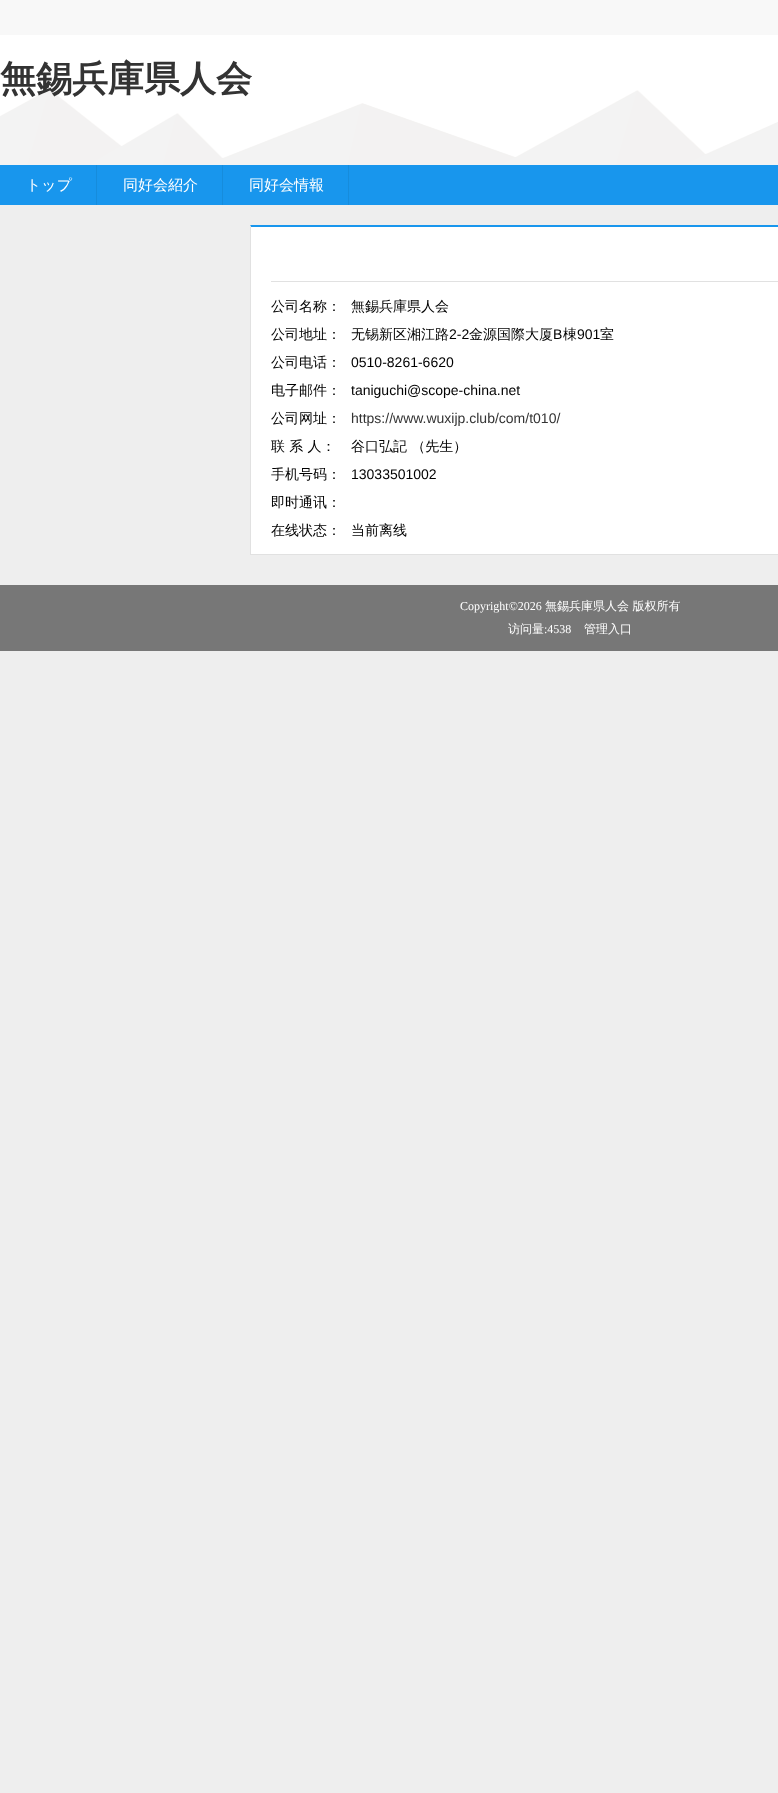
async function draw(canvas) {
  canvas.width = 778
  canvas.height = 1793
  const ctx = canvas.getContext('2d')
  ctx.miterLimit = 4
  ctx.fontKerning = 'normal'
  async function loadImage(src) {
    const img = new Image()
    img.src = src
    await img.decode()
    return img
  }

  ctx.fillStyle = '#eee'
  ctx.fillRect(0, 0, 778, 1793)
  ctx.fillStyle = '#f8f8f8'
  ctx.fillRect(0, 0, 778, 35)
  ctx.fillStyle = '#fff'
  ctx.fillRect(0, 35, 778, 130)
  ctx.drawImage(await loadImage('image0.png'), 0, 89, 778, 76)
  ctx.font = 'bold 36px WenQuanYi Zen Hei'
  ctx.fillStyle = '#333'
  ctx.fillText('無錫兵庫県人会', 0, 91)
  ctx.fillStyle = '#1896ed'
  ctx.fillRect(0, 165, 778, 40)
  ctx.fillStyle = '#168cdc'
  ctx.fillRect(96, 165, 1, 40)
  ctx.font = '500 15px WenQuanYi Zen Hei'
  ctx.fillStyle = '#fff'
  ctx.fillText('トップ', 26, 190)
  ctx.fillStyle = '#168cdc'
  ctx.fillRect(222, 165, 1, 40)
  ctx.fillStyle = '#fff'
  ctx.fillText('同好会紹介', 123, 190)
  ctx.fillStyle = '#168cdc'
  ctx.fillRect(348, 165, 1, 40)
  ctx.fillStyle = '#fff'
  ctx.fillText('同好会情報', 249, 190)
  ctx.fillRect(250, 225, 528, 57)
  ctx.fillStyle = '#1896ed'
  ctx.beginPath()
  ctx.moveTo(250, 225)
  ctx.lineTo(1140, 225)
  ctx.lineTo(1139, 227)
  ctx.lineTo(251, 227)
  ctx.closePath()
  ctx.fill()
  ctx.fillStyle = '#e1e1e1'
  ctx.beginPath()
  ctx.moveTo(250, 282)
  ctx.lineTo(250, 225)
  ctx.lineTo(251, 227)
  ctx.lineTo(251, 282)
  ctx.closePath()
  ctx.fill()
  ctx.fillRect(271, 281, 507, 1)
  ctx.fillStyle = '#fff'
  ctx.fillRect(251, 282, 527, 272)
  ctx.fillStyle = '#e1e1e1'
  ctx.fillRect(250, 554, 528, 1)
  ctx.fillRect(250, 282, 1, 273)
  ctx.font = '500 14px WenQuanYi Zen Hei'
  ctx.fillStyle = '#000'
  ctx.fillText('公司名称：', 271, 311)
  ctx.fillText('無錫兵庫県人会', 351, 311)
  ctx.fillText('公司地址：', 271, 339)
  ctx.fillText('无锡新区湘江路', 351, 339)
  ctx.font = '14px Liberation Sans'
  ctx.fillText('2-2', 449, 339)
  ctx.font = '500 14px WenQuanYi Zen Hei'
  ctx.fillText('金源国際大厦', 469, 339)
  ctx.font = '14px Liberation Sans'
  ctx.fillText('B', 553, 339)
  ctx.font = '500 14px WenQuanYi Zen Hei'
  ctx.fillText('棟', 563, 339)
  ctx.font = '14px Liberation Sans'
  ctx.fillText('901', 577, 339)
  ctx.font = '500 14px WenQuanYi Zen Hei'
  ctx.fillText('室', 600, 339)
  ctx.fillText('公司电话：', 271, 367)
  ctx.font = '14px Liberation Sans'
  ctx.fillText('0510-8261-6620', 351, 367)
  ctx.font = '500 14px WenQuanYi Zen Hei'
  ctx.fillText('电子邮件：', 271, 395)
  ctx.font = '14px Liberation Sans'
  ctx.fillText('taniguchi@scope-china.net', 351, 395)
  ctx.font = '500 14px WenQuanYi Zen Hei'
  ctx.fillText('公司网址：', 271, 423)
  ctx.font = '14px Liberation Sans'
  ctx.fillStyle = '#333'
  ctx.fillText('https://www.wuxijp.club/com/t010/', 351, 423)
  ctx.font = '500 14px WenQuanYi Zen Hei'
  ctx.fillStyle = '#000'
  ctx.fillText('联 系 人：', 271, 451)
  ctx.fillText('谷口弘記 （先生）', 351, 451)
  ctx.fillText('手机号码：', 271, 479)
  ctx.font = '14px Liberation Sans'
  ctx.fillText('13033501002', 351, 479)
  ctx.font = '500 14px WenQuanYi Zen Hei'
  ctx.fillText('即时通讯：', 271, 507)
  ctx.fillText('在线状态：', 271, 535)
  ctx.fillText('当前离线', 351, 535)
  ctx.fillStyle = '#777'
  ctx.fillRect(0, 585, 778, 66)
  ctx.font = '12px Liberation Serif'
  ctx.fillStyle = '#fff'
  ctx.fillText('Copyright©2026', 460, 610)
  ctx.font = '500 12px WenQuanYi Zen Hei'
  ctx.fillText('無錫兵庫県人会 版权所有', 545, 610)
  ctx.fillText('访问量', 508, 633)
  ctx.font = '12px Liberation Serif'
  ctx.fillText(':4538', 544, 633)
  ctx.font = '500 12px WenQuanYi Zen Hei'
  ctx.fillText('管理入口', 584, 633)
}

draw(document.querySelector('canvas'))
